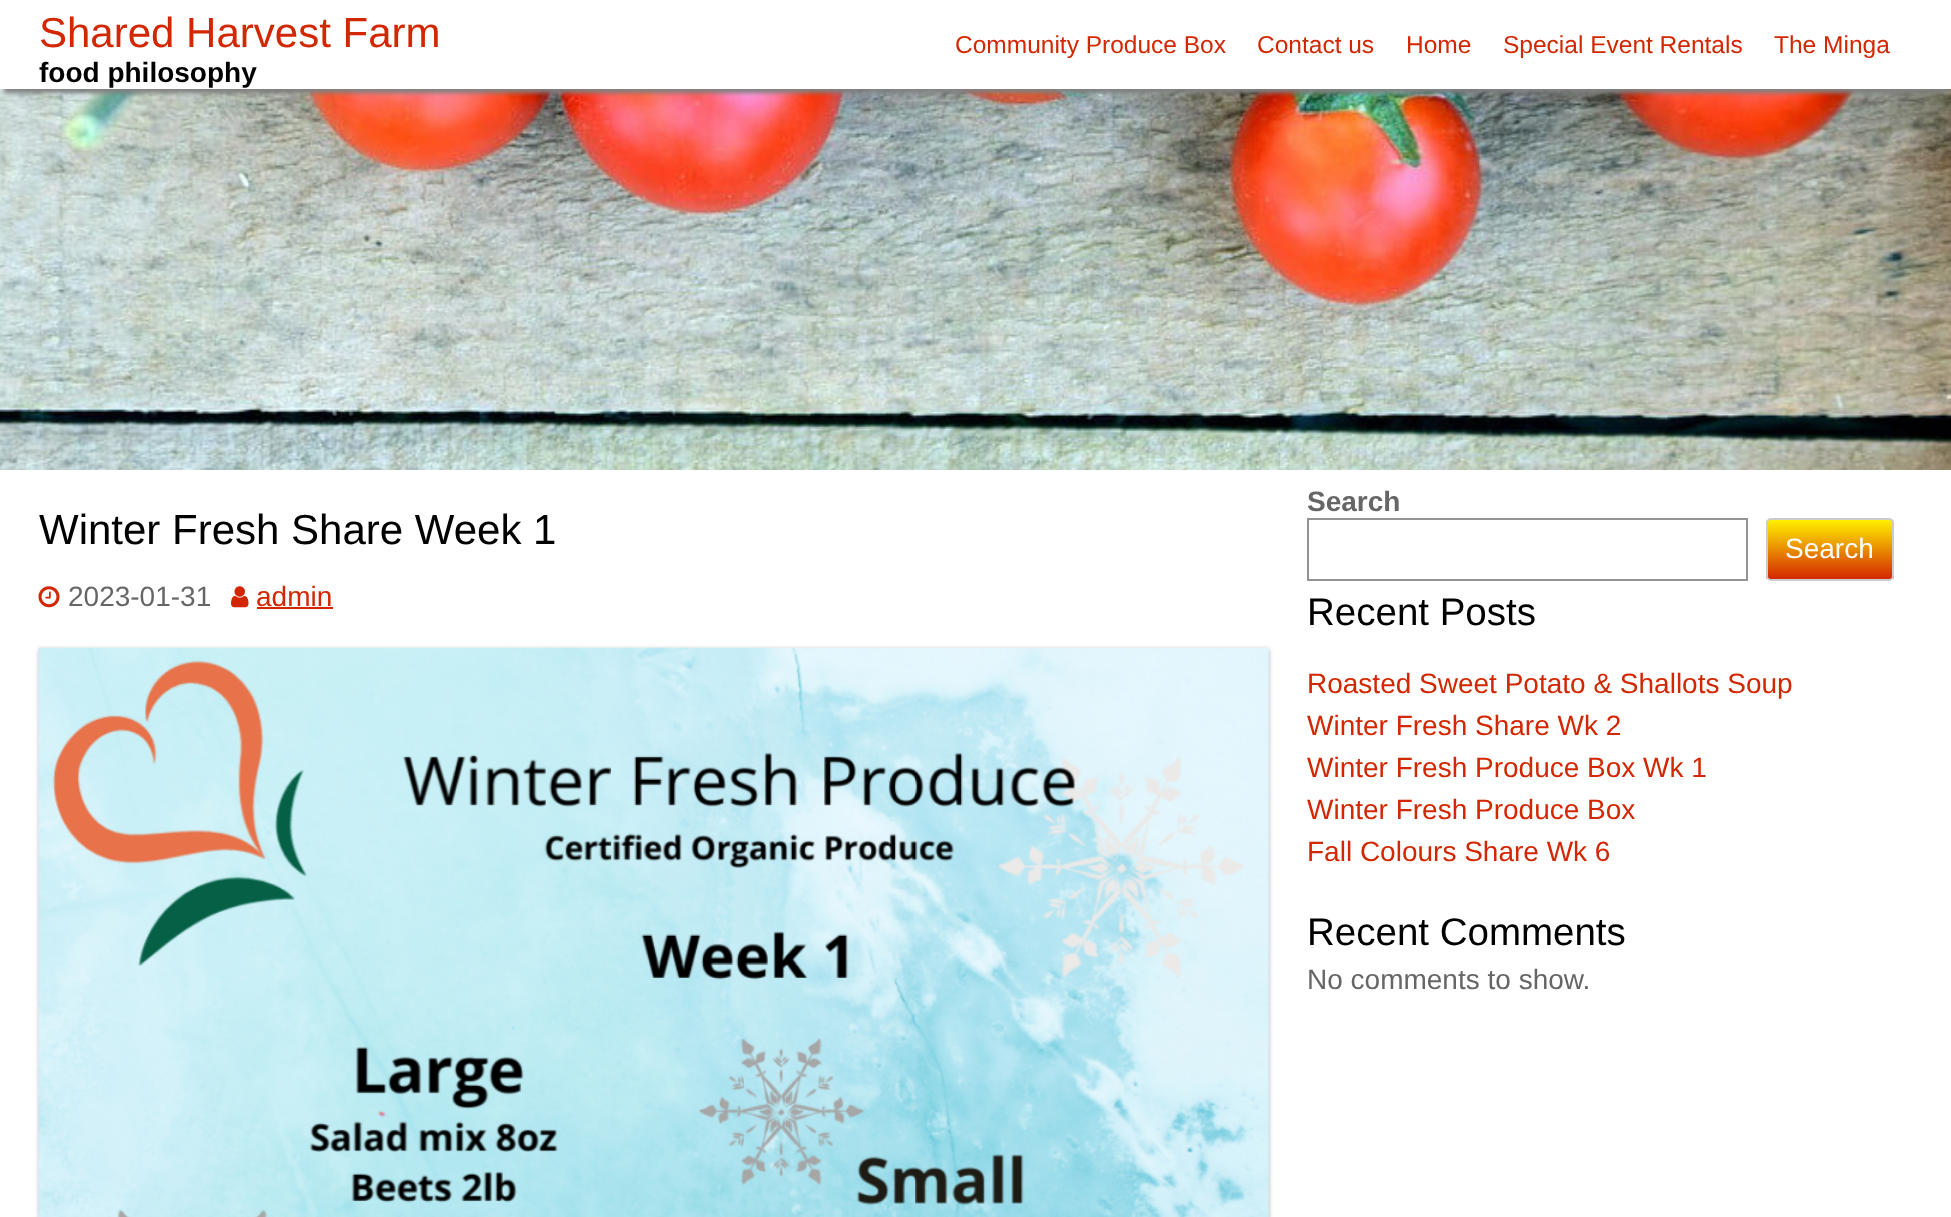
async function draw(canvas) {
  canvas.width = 1951
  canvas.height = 1217
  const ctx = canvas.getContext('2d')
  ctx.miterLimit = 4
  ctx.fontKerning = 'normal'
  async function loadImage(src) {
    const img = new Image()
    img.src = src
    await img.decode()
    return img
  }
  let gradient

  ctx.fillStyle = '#fff'
  ctx.fillRect(0, 0, 1951, 1217)
  ctx.drawImage(await loadImage('image0.png'), 0, 89, 1951, 381)
  ctx.fillStyle = '#808080'
  ctx.filter = 'blur(2px)'
  ctx.beginPath()
  ctx.rect(4, 11, 1944, 82)
  ctx.fill()
  ctx.filter = 'none'
  ctx.fillStyle = '#fff'
  ctx.fillRect(0, 7, 1951, 82)
  ctx.font = '42px Liberation Sans'
  ctx.fillStyle = '#d32701'
  ctx.fillText('Shared Harvest Farm', 39, 47)
  ctx.font = 'bold 28px Liberation Sans'
  ctx.fillStyle = '#000'
  ctx.fillText('food philosophy', 39, 82)
  ctx.font = '24.5px Liberation Sans'
  ctx.fillStyle = '#d32701'
  ctx.fillText('Community Produce Box', 955, 53)
  ctx.fillText('Contact us', 1257, 53)
  ctx.fillText('Home', 1406, 53)
  ctx.fillText('Special Event Rentals', 1503, 53)
  ctx.fillText('The Minga', 1774, 53)
  ctx.font = '42px Liberation Sans'
  ctx.fillStyle = '#000'
  ctx.fillText('Winter Fresh Share Week 1', 39, 544)
  ctx.drawImage(await loadImage('image1.png'), 38, 586, 22, 22)
  ctx.font = '28px Liberation Sans'
  ctx.fillStyle = '#666'
  ctx.fillText('2023-01-31', 68, 606)
  ctx.drawImage(await loadImage('image2.png'), 231, 586, 18, 22)
  ctx.fillStyle = '#d32701'
  ctx.fillText('admin', 256, 606)
  ctx.fillRect(257, 607, 76, 2)
  ctx.fillStyle = '#0000004d'
  ctx.filter = 'blur(2px)'
  ctx.beginPath()
  ctx.rect(39, 649, 1230, 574)
  ctx.fill()
  ctx.filter = 'none'
  ctx.drawImage(await loadImage('image3.png'), 38, 647, 1232, 570)
  ctx.font = 'bold 28px Liberation Sans'
  ctx.fillStyle = '#666'
  ctx.fillText('Search', 1307, 511)
  ctx.strokeStyle = '#949494'
  ctx.lineWidth = 2
  ctx.strokeRect(1308, 519, 439, 61)
  ctx.save()
  ctx.beginPath()
  ctx.roundRect(1766, 518, 128, 63, 5)
  ctx.clip()
  gradient = ctx.createLinearGradient(1830, 520, 1830, 579)
  gradient.addColorStop(0, '#fff000')
  gradient.addColorStop(1, '#d32701')
  ctx.fillStyle = gradient
  ctx.fillRect(1766, 520, 128, 59)
  ctx.restore()
  ctx.beginPath()
  ctx.roundRect(1767, 519, 126, 61, 4)
  ctx.strokeStyle = '#ccc'
  ctx.stroke()
  ctx.font = '28px Liberation Sans'
  ctx.fillStyle = '#fff'
  ctx.fillText('Search', 1785, 558)
  ctx.font = '38.5px Liberation Sans'
  ctx.fillStyle = '#000'
  ctx.fillText('Recent Posts', 1307, 625)
  ctx.font = '28px Liberation Sans'
  ctx.fillStyle = '#d32701'
  ctx.fillText('Roasted Sweet Potato & Shallots Soup', 1307, 693)
  ctx.fillText('Winter Fresh Share Wk 2', 1307, 735)
  ctx.fillText('Winter Fresh Produce Box Wk 1', 1307, 777)
  ctx.fillText('Winter Fresh Produce Box', 1307, 819)
  ctx.fillText('Fall Colours Share Wk 6', 1307, 861)
  ctx.font = '38.5px Liberation Sans'
  ctx.fillStyle = '#000'
  ctx.fillText('Recent Comments', 1307, 945)
  ctx.font = '28px Liberation Sans'
  ctx.fillStyle = '#666'
  ctx.fillText('No comments to show.', 1307, 989)
}

draw(document.querySelector('canvas'))
